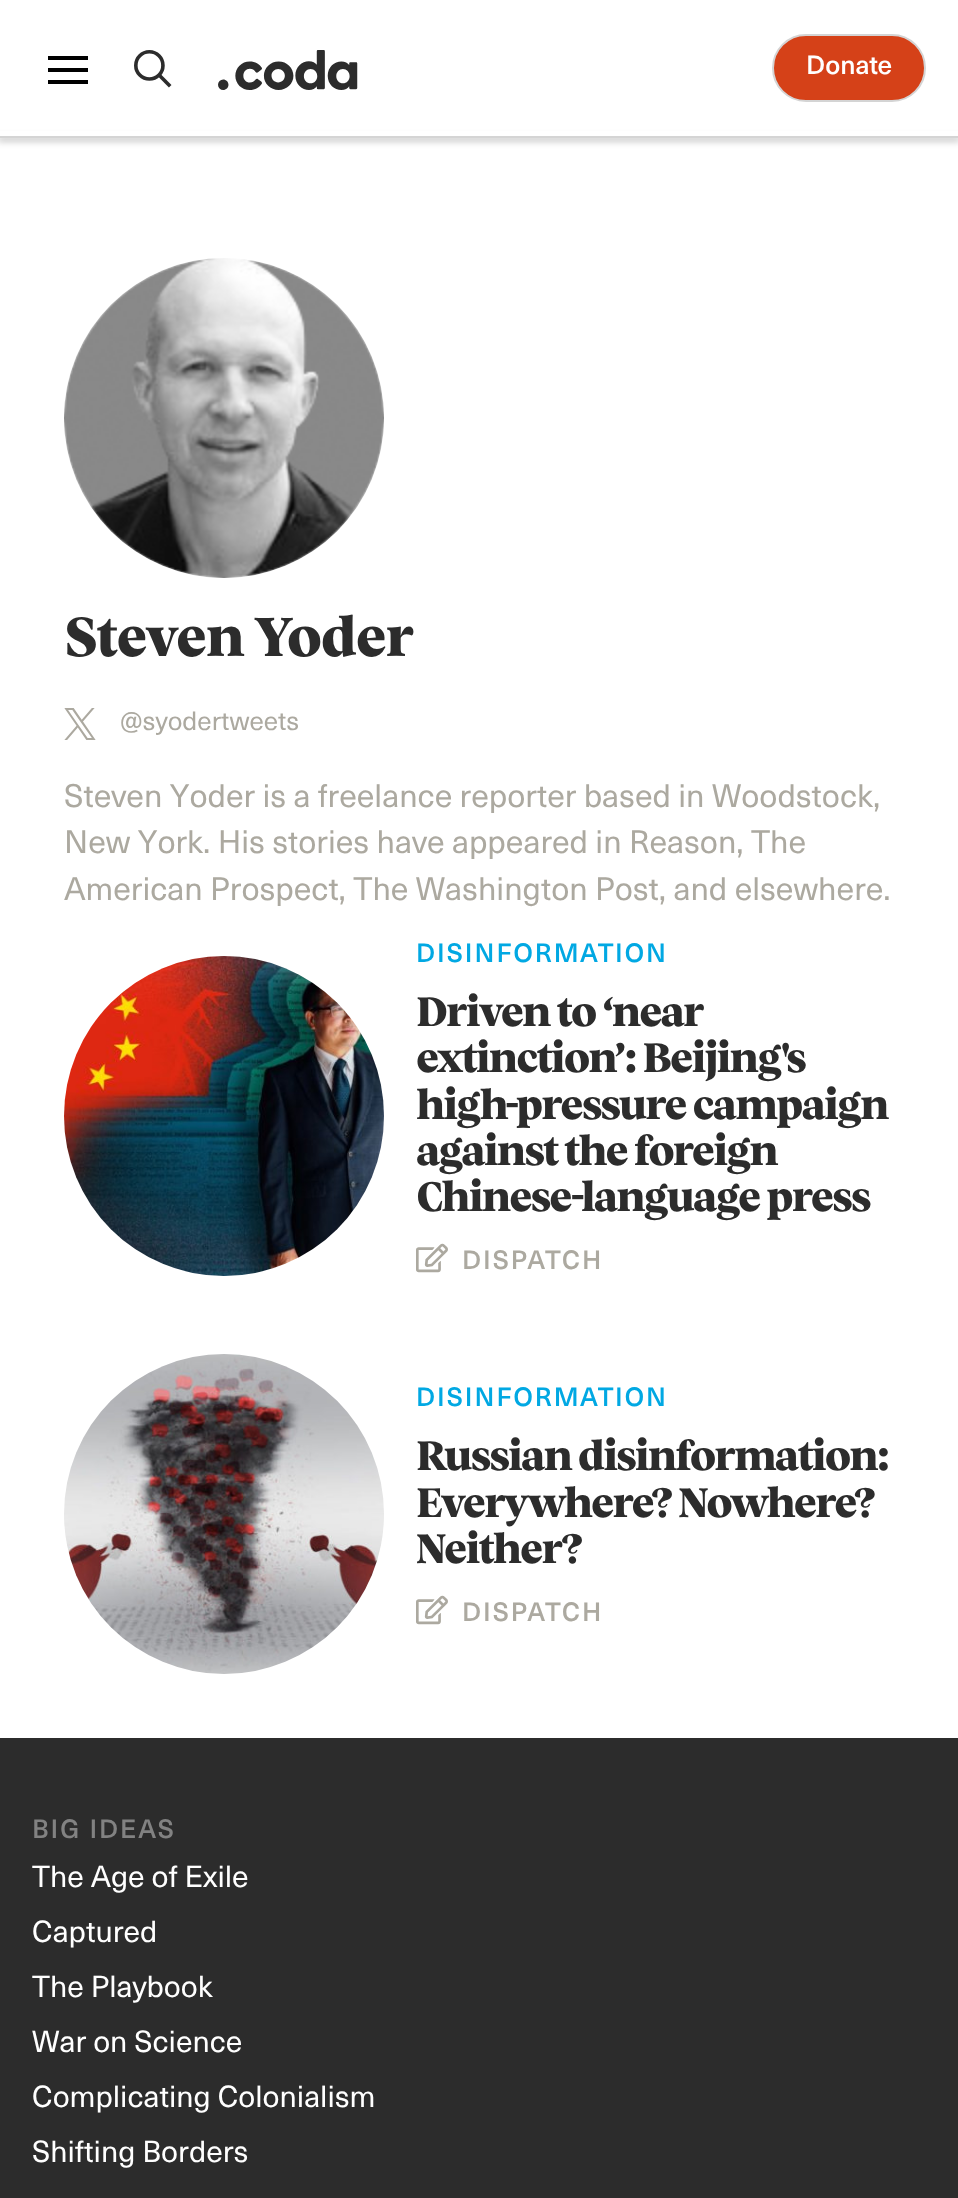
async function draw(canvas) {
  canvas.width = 958
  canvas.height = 2198
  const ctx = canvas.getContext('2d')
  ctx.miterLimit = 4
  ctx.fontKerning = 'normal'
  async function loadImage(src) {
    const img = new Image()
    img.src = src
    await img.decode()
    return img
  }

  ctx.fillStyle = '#fff'
  ctx.fillRect(0, 0, 958, 2198)
  ctx.fillStyle = '#00000033'
  ctx.filter = 'blur(3px)'
  ctx.beginPath()
  ctx.rect(-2, 136, 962, 6)
  ctx.fill()
  ctx.filter = 'none'
  ctx.fillStyle = '#fff'
  ctx.fillRect(0, 131, 958, 5)
  ctx.fillStyle = '#000'
  ctx.fillRect(48, 56, 40, 4)
  ctx.fillRect(48, 68, 40, 4)
  ctx.fillRect(48, 80, 40, 4)
  ctx.drawImage(await loadImage('image0.png'), 134, 50, 38, 38)
  ctx.drawImage(await loadImage('image1.png'), 218, 50, 140, 40)
  ctx.fillStyle = '#d54118'
  ctx.beginPath()
  ctx.roundRect(773, 35, 152, 66, 33)
  ctx.fill()
  ctx.strokeStyle = '#d4d4d4'
  ctx.lineWidth = 2
  ctx.stroke()
  ctx.font = '26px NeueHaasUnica'
  ctx.fillStyle = '#fff'
  ctx.fillText('Donate', 806, 74)
  ctx.fillStyle = '#d4d4d4'
  ctx.fillRect(0, 136, 958, 2)
  ctx.drawImage(await loadImage('image2.png'), 64, 258, 320, 320)
  ctx.letterSpacing = '-1.4px'
  ctx.font = '800 56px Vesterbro'
  ctx.fillStyle = '#2c2c2c'
  ctx.fillText('Steven Yoder', 64, 656)
  ctx.drawImage(await loadImage('image3.png'), 64, 708, 32, 32)
  ctx.letterSpacing = '0px'
  ctx.font = '26px "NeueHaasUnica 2"'
  ctx.fillStyle = '#aca9a0'
  ctx.fillText('@syodertweets', 120, 730)
  ctx.font = '32px "NeueHaasUnica 2"'
  ctx.fillText('Steven Yoder is a freelance reporter based in Woodstock,', 64, 807)
  ctx.fillText('New York. His stories have appeared in Reason, The', 64, 853)
  ctx.fillText('American Prospect, The Washington Post, and elsewhere.', 64, 900)
  ctx.drawImage(await loadImage('image4.png'), 64, 956, 320, 320)
  ctx.letterSpacing = '2px'
  ctx.font = '26px NeueHaasUnica'
  ctx.fillStyle = '#01a8e3'
  ctx.fillText('DISINFORMATION', 416, 962)
  ctx.letterSpacing = '-2px'
  ctx.font = '800 42px Vesterbro'
  ctx.fillStyle = '#2c2c2c'
  ctx.fillText('Driven to ‘near', 416, 1026)
  ctx.fillText('extinction’: Beijing\'s', 416, 1072)
  ctx.fillText('high-pressure campaign', 416, 1119)
  ctx.fillText('against the foreign', 416, 1165)
  ctx.fillText('Chinese-language press', 416, 1211)
  ctx.drawImage(await loadImage('image5.png'), 416, 1243, 32, 30)
  ctx.letterSpacing = '2px'
  ctx.font = '26px NeueHaasUnica'
  ctx.fillStyle = '#aca9a0'
  ctx.fillText('DISPATCH', 462, 1269)
  ctx.drawImage(await loadImage('image6.png'), 64, 1354, 320, 320)
  ctx.fillStyle = '#01a8e3'
  ctx.fillText('DISINFORMATION', 416, 1406)
  ctx.letterSpacing = '-2px'
  ctx.font = '800 42px Vesterbro'
  ctx.fillStyle = '#2c2c2c'
  ctx.fillText('Russian disinformation:', 416, 1470)
  ctx.fillText('Everywhere? Nowhere?', 416, 1517)
  ctx.fillText('Neither?', 416, 1563)
  ctx.drawImage(await loadImage('image7.png'), 416, 1595, 32, 30)
  ctx.letterSpacing = '2px'
  ctx.font = '26px NeueHaasUnica'
  ctx.fillStyle = '#aca9a0'
  ctx.fillText('DISPATCH', 462, 1621)
  ctx.fillStyle = '#2c2c2c'
  ctx.fillRect(0, 1738, 958, 460)
  ctx.fillStyle = '#828282'
  ctx.fillText('BIG IDEAS', 32, 1838)
  ctx.letterSpacing = '0px'
  ctx.font = '30px "NeueHaasUnica 2"'
  ctx.fillStyle = '#fff'
  ctx.fillText('The Age of Exile', 32, 1887)
  ctx.fillText('Captured', 32, 1942)
  ctx.fillText('The Playbook', 32, 1997)
  ctx.fillText('War on Science', 32, 2052)
  ctx.fillText('Complicating Colonialism', 32, 2107)
  ctx.fillText('Shifting Borders', 32, 2162)
}

draw(document.querySelector('canvas'))
